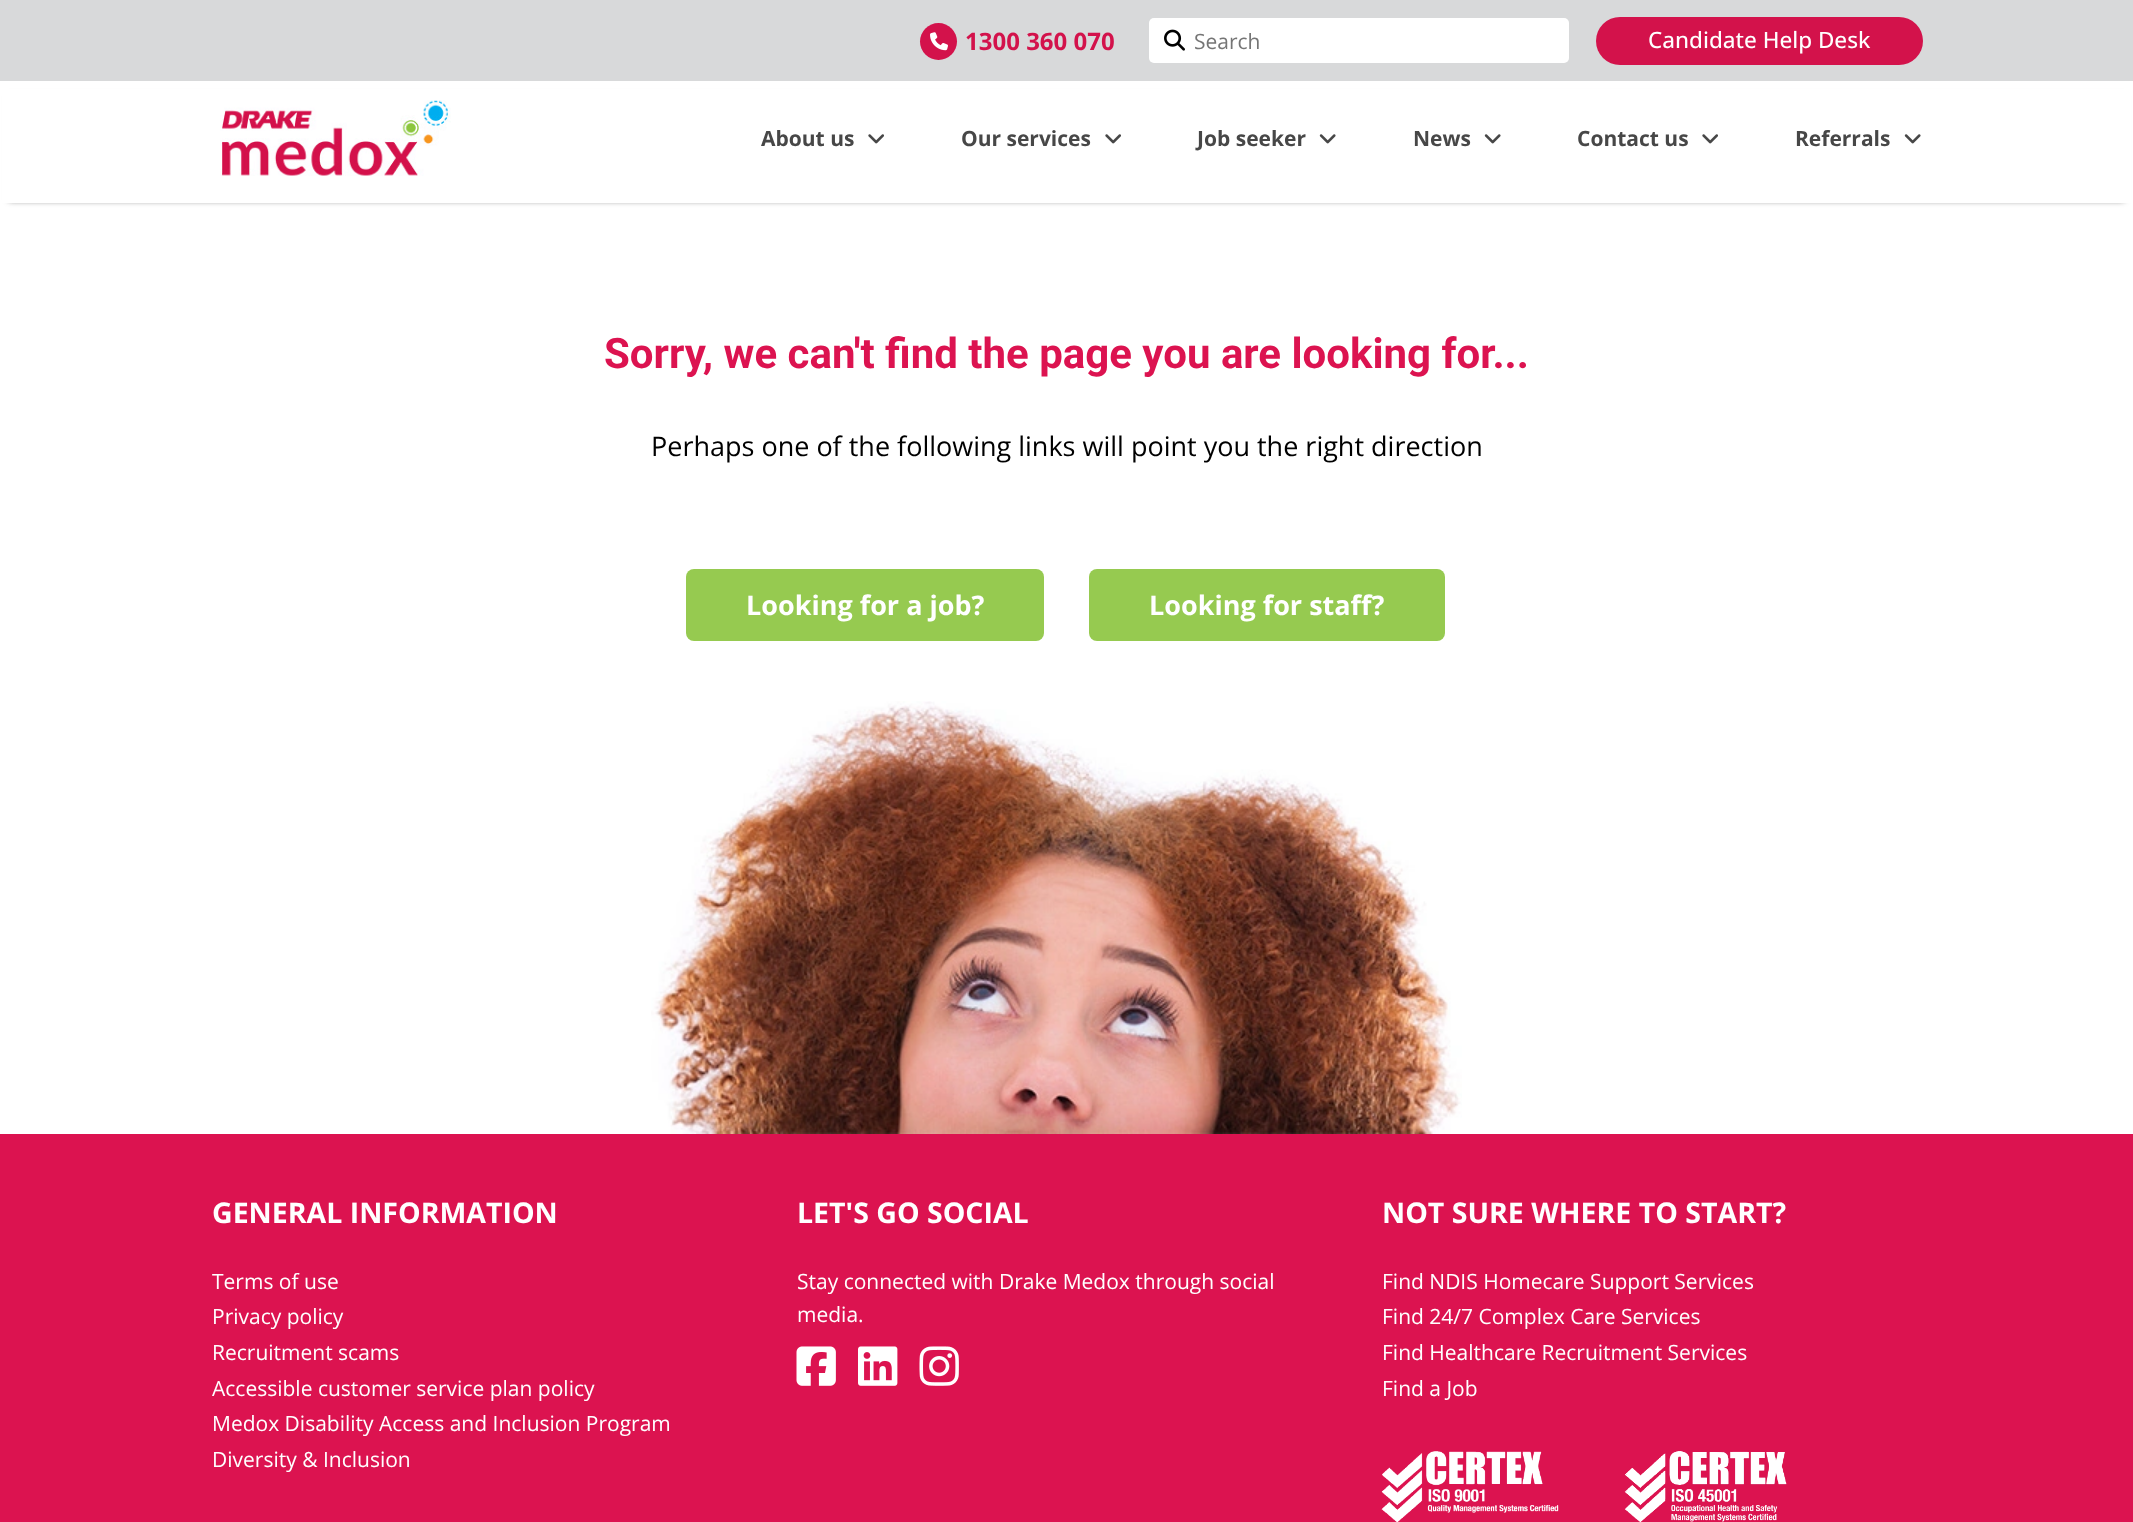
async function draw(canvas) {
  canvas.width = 2133
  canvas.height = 1522
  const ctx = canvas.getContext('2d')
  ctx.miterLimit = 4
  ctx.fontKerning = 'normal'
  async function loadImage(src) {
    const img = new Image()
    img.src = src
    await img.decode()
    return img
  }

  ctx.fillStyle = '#fff'
  ctx.fillRect(0, 0, 2133, 1522)
  ctx.fillStyle = '#d8d9da'
  ctx.fillRect(0, 0, 2133, 81)
  ctx.fillStyle = '#d3124b'
  ctx.beginPath()
  ctx.arc(938.5, 41.5, 18.5, 0, 2 * Math.PI)
  ctx.fill()
  ctx.drawImage(await loadImage('image0.png'), 930, 32, 18, 19)
  ctx.font = 'bold 24px Open Sans'
  ctx.fillText('1300 360 070', 965, 50)
  ctx.fillStyle = '#fff'
  ctx.beginPath()
  ctx.roundRect(1149, 18, 420, 45, 5)
  ctx.fill()
  ctx.drawImage(await loadImage('image1.png'), 1164, 29, 21, 22)
  ctx.font = '21px Open Sans'
  ctx.fillStyle = '#757575'
  ctx.fillText('Search', 1194, 49)
  ctx.fillStyle = '#d3124b'
  ctx.beginPath()
  ctx.roundRect(1596, 17, 327, 48, 24)
  ctx.fill()
  ctx.font = '500 22.5px Open Sans'
  ctx.fillStyle = '#fff'
  ctx.fillText('Candidate Help Desk', 1648, 48)
  ctx.fillStyle = '#333'
  ctx.filter = 'blur(3px)'
  ctx.beginPath()
  ctx.rect(9, 96, 2115, 104)
  ctx.fill()
  ctx.filter = 'none'
  ctx.fillStyle = '#fff'
  ctx.fillRect(2, 89, 2129, 114)
  ctx.drawImage(await loadImage('image2.png'), 220, 100, 231, 76)
  ctx.font = 'bold 21px Open Sans'
  ctx.fillStyle = '#474747'
  ctx.fillText('About us', 761, 146)
  ctx.drawImage(await loadImage('image3.png'), 868, 134, 16, 10)
  ctx.fillText('Our services', 961, 146)
  ctx.drawImage(await loadImage('image3.png'), 1105, 134, 16, 10)
  ctx.fillText('Job seeker', 1197, 146)
  ctx.drawImage(await loadImage('image4.png'), 1319, 134, 17, 10)
  ctx.fillText('News', 1413, 146)
  ctx.drawImage(await loadImage('image4.png'), 1484, 134, 17, 10)
  ctx.fillText('Contact us', 1577, 146)
  ctx.drawImage(await loadImage('image3.png'), 1702, 134, 16, 10)
  ctx.fillText('Referrals', 1795, 146)
  ctx.drawImage(await loadImage('image4.png'), 1904, 134, 17, 10)
  ctx.font = 'bold 42px Roboto'
  ctx.fillStyle = '#dc1350'
  ctx.fillText('Sorry, we can\'t find the page you are looking for...', 604, 368)
  ctx.font = '27px Open Sans'
  ctx.fillStyle = '#000'
  ctx.fillText('Perhaps one of the following links will point you the right direction', 651, 456)
  ctx.fillStyle = '#96ca50'
  ctx.beginPath()
  ctx.roundRect(686, 569, 358, 72, 8)
  ctx.fill()
  ctx.font = 'bold 27px Open Sans'
  ctx.fillStyle = '#fff'
  ctx.fillText('Looking for a job?', 746, 615)
  ctx.fillStyle = '#96ca50'
  ctx.beginPath()
  ctx.roundRect(1089, 569, 356, 72, 8)
  ctx.fill()
  ctx.fillStyle = '#fff'
  ctx.fillText('Looking for staff?', 1149, 615)
  ctx.drawImage(await loadImage('image5.png'), 651, 701, 811, 433)
  ctx.fillStyle = '#dc1350'
  ctx.fillRect(0, 1134, 2133, 388)
  ctx.font = 'bold 28.5px Open Sans'
  ctx.fillStyle = '#fff'
  ctx.fillText('GENERAL INFORMATION', 212, 1223)
  ctx.font = '21px Open Sans'
  ctx.fillText('Terms of use', 212, 1289)
  ctx.fillText('Privacy policy', 212, 1324)
  ctx.fillText('Recruitment scams', 212, 1360)
  ctx.fillText('Accessible customer service plan policy', 212, 1396)
  ctx.fillText('Medox Disability Access and Inclusion Program', 212, 1431)
  ctx.fillText('Diversity & Inclusion', 212, 1467)
  ctx.font = 'bold 28.5px Open Sans'
  ctx.fillText('LET\'S GO SOCIAL', 797, 1223)
  ctx.font = '21px Open Sans'
  ctx.fillText('Stay connected with Drake Medox through social', 797, 1289)
  ctx.fillText('media.', 797, 1322)
  ctx.drawImage(await loadImage('image6.png'), 796, 1346, 40, 40)
  ctx.drawImage(await loadImage('image7.png'), 858, 1346, 40, 40)
  ctx.drawImage(await loadImage('image8.png'), 919, 1346, 40, 40)
  ctx.font = 'bold 28.5px Open Sans'
  ctx.fillText('NOT SURE WHERE TO START?', 1382, 1223)
  ctx.font = '21px Open Sans'
  ctx.fillText('Find NDIS Homecare Support Services', 1382, 1289)
  ctx.fillText('Find 24/7 Complex Care Services', 1382, 1324)
  ctx.fillText('Find Healthcare Recruitment Services', 1382, 1360)
  ctx.fillText('Find a Job', 1382, 1396)
  ctx.drawImage(await loadImage('image9.png'), 1381, 1451, 178, 71)
  ctx.drawImage(await loadImage('image10.png'), 1624, 1451, 163, 71)
}

draw(document.querySelector('canvas'))
